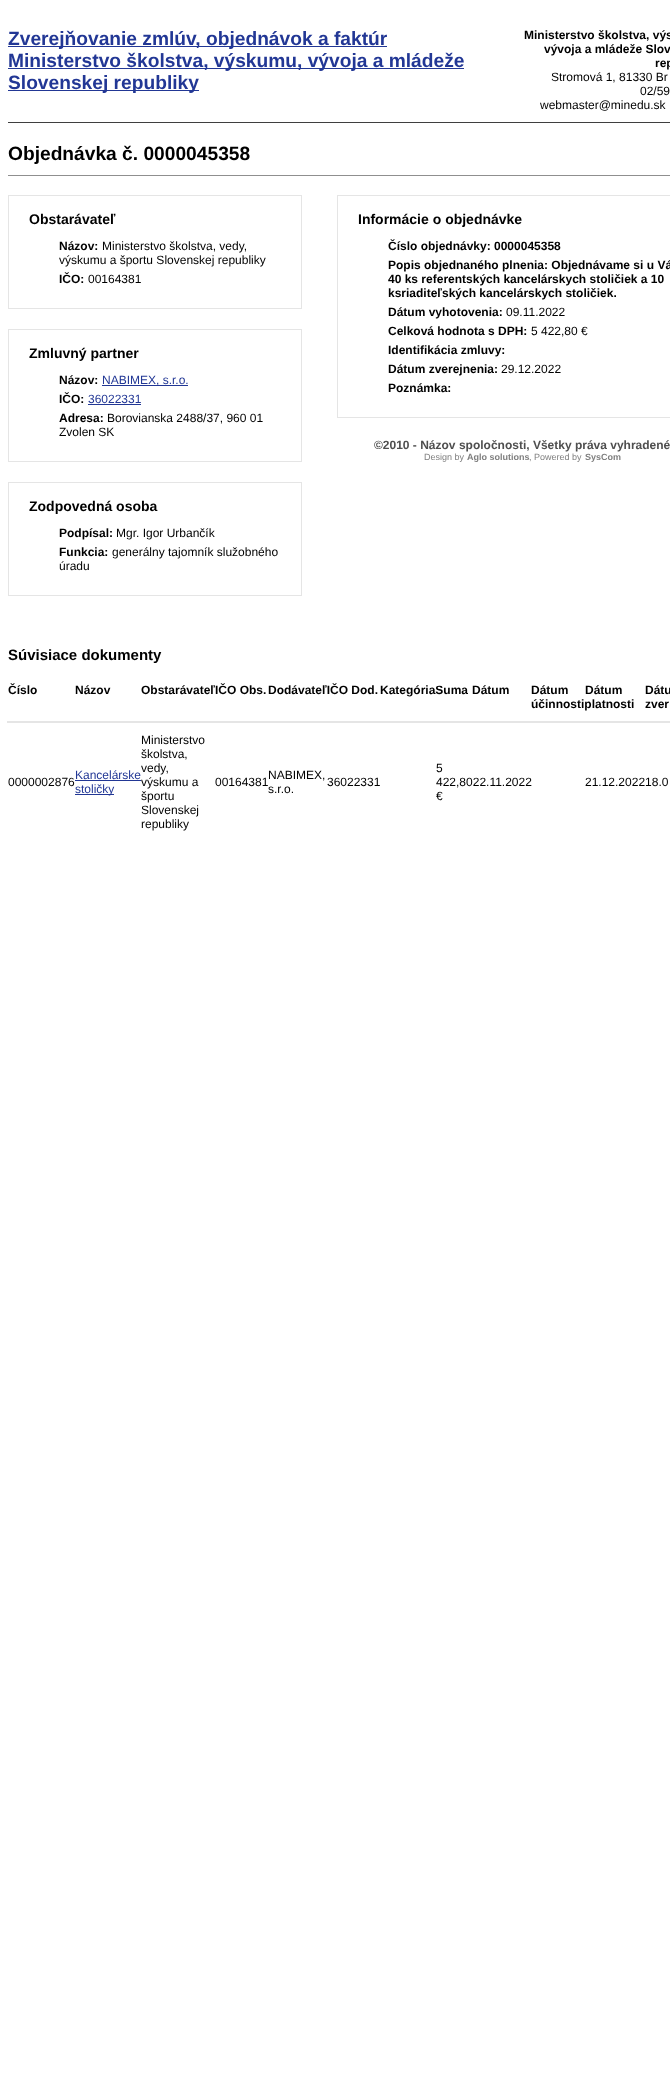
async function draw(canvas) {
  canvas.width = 670
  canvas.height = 2094
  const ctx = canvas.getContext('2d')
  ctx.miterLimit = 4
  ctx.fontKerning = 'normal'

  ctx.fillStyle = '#fff'
  ctx.fillRect(0, 0, 670, 2094)
  ctx.fillStyle = '#3f3f3f'
  ctx.fillRect(8, 122, 662, 1)
  ctx.fillStyle = '#223795'
  ctx.fillRect(8, 46, 379, 1)
  ctx.font = 'bold 19.2px Liberation Sans'
  ctx.fillText('Zverejňovanie zmlúv, objednávok a faktúr', 8, 45)
  ctx.fillRect(8, 68, 456, 1)
  ctx.fillText('Ministerstvo školstva, výskumu, vývoja a mládeže', 8, 67)
  ctx.fillRect(8, 90, 191, 1)
  ctx.fillText('Slovenskej republiky', 8, 89)
  ctx.font = 'bold 12px Liberation Sans'
  ctx.fillStyle = '#000'
  ctx.fillText('Ministerstvo školstva, výs', 524, 39)
  ctx.fillText('vývoja a mládeže Slov', 544, 53)
  ctx.fillText('rep', 655, 67)
  ctx.font = '12px Liberation Sans'
  ctx.fillText('Stromová 1, 81330 Br', 551, 81)
  ctx.fillText('02/59', 640, 95)
  ctx.fillText('webmaster@minedu.sk', 540, 109)
  ctx.font = 'bold 19.2px Liberation Sans'
  ctx.fillText('Objednávka č. 0000045358', 8, 160)
  ctx.strokeStyle = '#e5e5e5'
  ctx.strokeRect(8.5, 195.5, 293, 113)
  ctx.font = 'bold 14px Liberation Sans'
  ctx.fillText('Obstarávateľ', 29, 224)
  ctx.font = 'bold 12px Liberation Sans'
  ctx.fillText('Názov:', 59, 250)
  ctx.font = '12px Liberation Sans'
  ctx.fillText('Ministerstvo školstva, vedy,', 102, 250)
  ctx.fillText('výskumu a športu Slovenskej republiky', 59, 264)
  ctx.font = 'bold 12px Liberation Sans'
  ctx.fillText('IČO:', 59, 283)
  ctx.font = '12px Liberation Sans'
  ctx.fillText('00164381', 88, 283)
  ctx.strokeRect(8.5, 329.5, 293, 132)
  ctx.font = 'bold 14px Liberation Sans'
  ctx.fillText('Zmluvný partner', 29, 358)
  ctx.font = 'bold 12px Liberation Sans'
  ctx.fillText('Názov:', 59, 384)
  ctx.fillStyle = '#223795'
  ctx.fillRect(102, 385, 86, 1)
  ctx.font = '12px Liberation Sans'
  ctx.fillText('NABIMEX, s.r.o.', 102, 384)
  ctx.font = 'bold 12px Liberation Sans'
  ctx.fillStyle = '#000'
  ctx.fillText('IČO:', 59, 403)
  ctx.font = '12px Liberation Sans'
  ctx.fillStyle = '#223795'
  ctx.fillText('36022331', 88, 403)
  ctx.fillRect(88, 404, 53, 1)
  ctx.font = 'bold 12px Liberation Sans'
  ctx.fillStyle = '#000'
  ctx.fillText('Adresa:', 59, 422)
  ctx.font = '12px Liberation Sans'
  ctx.fillText('Borovianska 2488/37, 960 01', 107, 422)
  ctx.fillText('Zvolen SK', 59, 436)
  ctx.strokeRect(8.5, 482.5, 293, 113)
  ctx.font = 'bold 14px Liberation Sans'
  ctx.fillText('Zodpovedná osoba', 29, 511)
  ctx.font = 'bold 12px Liberation Sans'
  ctx.fillText('Podpísal:', 59, 537)
  ctx.font = '12px Liberation Sans'
  ctx.fillText('Mgr. Igor Urbančík', 116, 537)
  ctx.font = 'bold 12px Liberation Sans'
  ctx.fillText('Funkcia:', 59, 556)
  ctx.font = '12px Liberation Sans'
  ctx.fillText('generálny tajomník služobného', 112, 556)
  ctx.fillText('úradu', 59, 570)
  ctx.strokeRect(337.5, 195.5, 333, 222)
  ctx.font = 'bold 14px Liberation Sans'
  ctx.fillText('Informácie o objednávke', 358, 224)
  ctx.font = 'bold 12px Liberation Sans'
  ctx.fillText('Číslo objednávky: 0000045358', 388, 250)
  ctx.fillText('Popis objednaného plnenia: Objednávame si u Vá', 388, 269)
  ctx.fillText('40 ks referentských kancelárskych stoličiek a 10', 388, 283)
  ctx.fillText('ksriaditeľských kancelárskych stoličiek.', 388, 297)
  ctx.fillText('Dátum vyhotovenia:', 388, 316)
  ctx.font = '12px Liberation Sans'
  ctx.fillText('09.11.2022', 506, 316)
  ctx.font = 'bold 12px Liberation Sans'
  ctx.fillText('Celková hodnota s DPH:', 388, 335)
  ctx.font = '12px Liberation Sans'
  ctx.fillText('5 422,80 €', 531, 335)
  ctx.font = 'bold 12px Liberation Sans'
  ctx.fillText('Identifikácia zmluvy:', 388, 354)
  ctx.fillText('Dátum zverejnenia:', 388, 373)
  ctx.font = '12px Liberation Sans'
  ctx.fillText('29.12.2022', 501, 373)
  ctx.font = 'bold 12px Liberation Sans'
  ctx.fillText('Poznámka:', 388, 392)
  ctx.font = 'bold 15px Liberation Sans'
  ctx.fillText('Súvisiace dokumenty', 8, 660)
  ctx.font = 'bold 12px Liberation Sans'
  ctx.fillText('Číslo', 8, 694)
  ctx.fillText('Názov', 75, 694)
  ctx.fillText('ObstarávateľIČO Obs.', 141, 694)
  ctx.fillText('DodávateľIČO Dod.', 268, 694)
  ctx.fillText('KategóriaSuma', 380, 694)
  ctx.fillText('Dátum', 472, 694)
  ctx.fillText('Dátum', 531, 694)
  ctx.fillText('účinnostiplatnosti', 531, 708)
  ctx.fillText('Dátum', 585, 694)
  ctx.fillStyle = '#e5e5e5'
  ctx.fillRect(7, 721, 663, 2)
  ctx.fillStyle = '#000'
  ctx.fillText('Dátu', 645, 694)
  ctx.fillText('zver', 645, 708)
  ctx.font = '12px Liberation Sans'
  ctx.fillText('0000002876', 8, 786)
  ctx.fillStyle = '#223795'
  ctx.fillText('Kancelárske', 75, 779)
  ctx.fillRect(75, 780, 66, 1)
  ctx.fillRect(75, 794, 39, 1)
  ctx.fillText('stoličky', 75, 793)
  ctx.fillStyle = '#000'
  ctx.fillText('Ministerstvo', 141, 744)
  ctx.fillText('školstva,', 141, 758)
  ctx.fillText('vedy,', 141, 772)
  ctx.fillText('výskumu a', 141, 786)
  ctx.fillText('športu', 141, 800)
  ctx.fillText('Slovenskej', 141, 814)
  ctx.fillText('republiky', 141, 828)
  ctx.fillText('00164381', 215, 786)
  ctx.fillText('NABIMEX,', 268, 779)
  ctx.fillText('s.r.o.', 268, 793)
  ctx.fillText('36022331', 327, 786)
  ctx.fillText('5', 436, 772)
  ctx.fillText('422,8022.11.2022', 436, 786)
  ctx.fillText('€', 436, 800)
  ctx.fillText('21.12.202218.0', 585, 786)
  ctx.fillStyle = '#8f8f8f'
  ctx.fillRect(8, 175, 662, 1)
  ctx.font = 'bold 12px Liberation Sans'
  ctx.fillStyle = '#4f4f4f'
  ctx.fillText('©2010 - Názov spoločnosti, Všetky práva vyhradené', 374, 449)
  ctx.font = '9px Liberation Sans'
  ctx.fillStyle = '#7f7f7f'
  ctx.fillText('Design by', 424, 460)
  ctx.font = 'bold 9px Liberation Sans'
  ctx.fillText('Aglo solutions', 467, 460)
  ctx.font = '9px Liberation Sans'
  ctx.fillText(', Powered by', 529, 460)
  ctx.font = 'bold 9px Liberation Sans'
  ctx.fillText('SysCom', 585, 460)
}

draw(document.querySelector('canvas'))
